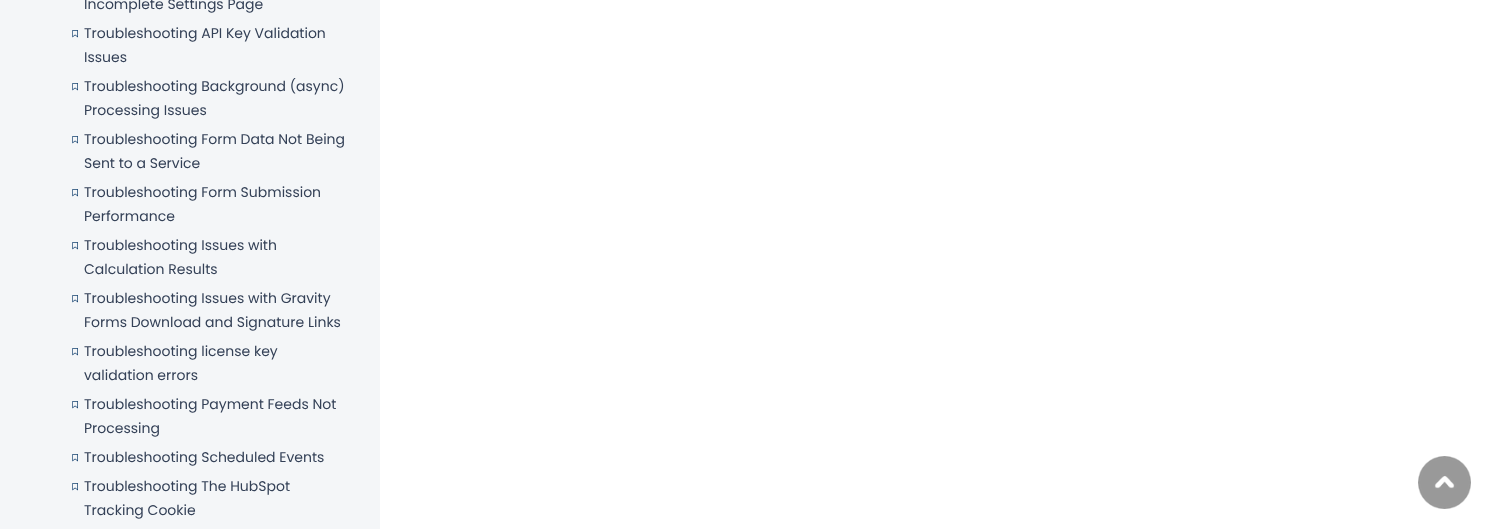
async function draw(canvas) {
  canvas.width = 1491
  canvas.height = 529
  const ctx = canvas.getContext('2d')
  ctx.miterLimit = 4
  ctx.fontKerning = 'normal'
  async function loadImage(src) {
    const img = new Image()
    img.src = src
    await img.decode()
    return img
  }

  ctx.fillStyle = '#fff'
  ctx.fillRect(0, 0, 1491, 529)
  ctx.fillStyle = '#f4f6f8'
  ctx.fillRect(0, 0, 380, 529)
  ctx.font = '14px Poppins'
  ctx.fillStyle = '#344157'
  ctx.fillText('Incomplete Settings Page', 84, 9)
  ctx.drawImage(await loadImage('image0.png'), 72, 30, 6, 8)
  ctx.fillText('Troubleshooting API Key Validation', 84, 38)
  ctx.fillText('Issues', 84, 62)
  ctx.drawImage(await loadImage('image0.png'), 72, 83, 6, 8)
  ctx.fillText('Troubleshooting Background (async)', 84, 91)
  ctx.fillText('Processing Issues', 84, 115)
  ctx.drawImage(await loadImage('image0.png'), 72, 136, 6, 8)
  ctx.fillText('Troubleshooting Form Data Not Being', 84, 144)
  ctx.fillText('Sent to a Service', 84, 168)
  ctx.drawImage(await loadImage('image0.png'), 72, 189, 6, 8)
  ctx.fillText('Troubleshooting Form Submission', 84, 197)
  ctx.fillText('Performance', 84, 221)
  ctx.drawImage(await loadImage('image0.png'), 72, 242, 6, 8)
  ctx.fillText('Troubleshooting Issues with', 84, 250)
  ctx.fillText('Calculation Results', 84, 274)
  ctx.drawImage(await loadImage('image0.png'), 72, 295, 6, 8)
  ctx.fillText('Troubleshooting Issues with Gravity', 84, 303)
  ctx.fillText('Forms Download and Signature Links', 84, 327)
  ctx.drawImage(await loadImage('image0.png'), 72, 348, 6, 8)
  ctx.fillText('Troubleshooting license key', 84, 356)
  ctx.fillText('validation errors', 84, 380)
  ctx.drawImage(await loadImage('image0.png'), 72, 401, 6, 8)
  ctx.fillText('Troubleshooting Payment Feeds Not', 84, 409)
  ctx.fillText('Processing', 84, 433)
  ctx.drawImage(await loadImage('image0.png'), 72, 454, 6, 8)
  ctx.fillText('Troubleshooting Scheduled Events', 84, 462)
  ctx.drawImage(await loadImage('image0.png'), 72, 483, 6, 8)
  ctx.fillText('Troubleshooting The HubSpot', 84, 491)
  ctx.fillText('Tracking Cookie', 84, 515)
  ctx.drawImage(await loadImage('image1.png'), 1418, 456, 53, 53)
}

draw(document.querySelector('canvas'))
